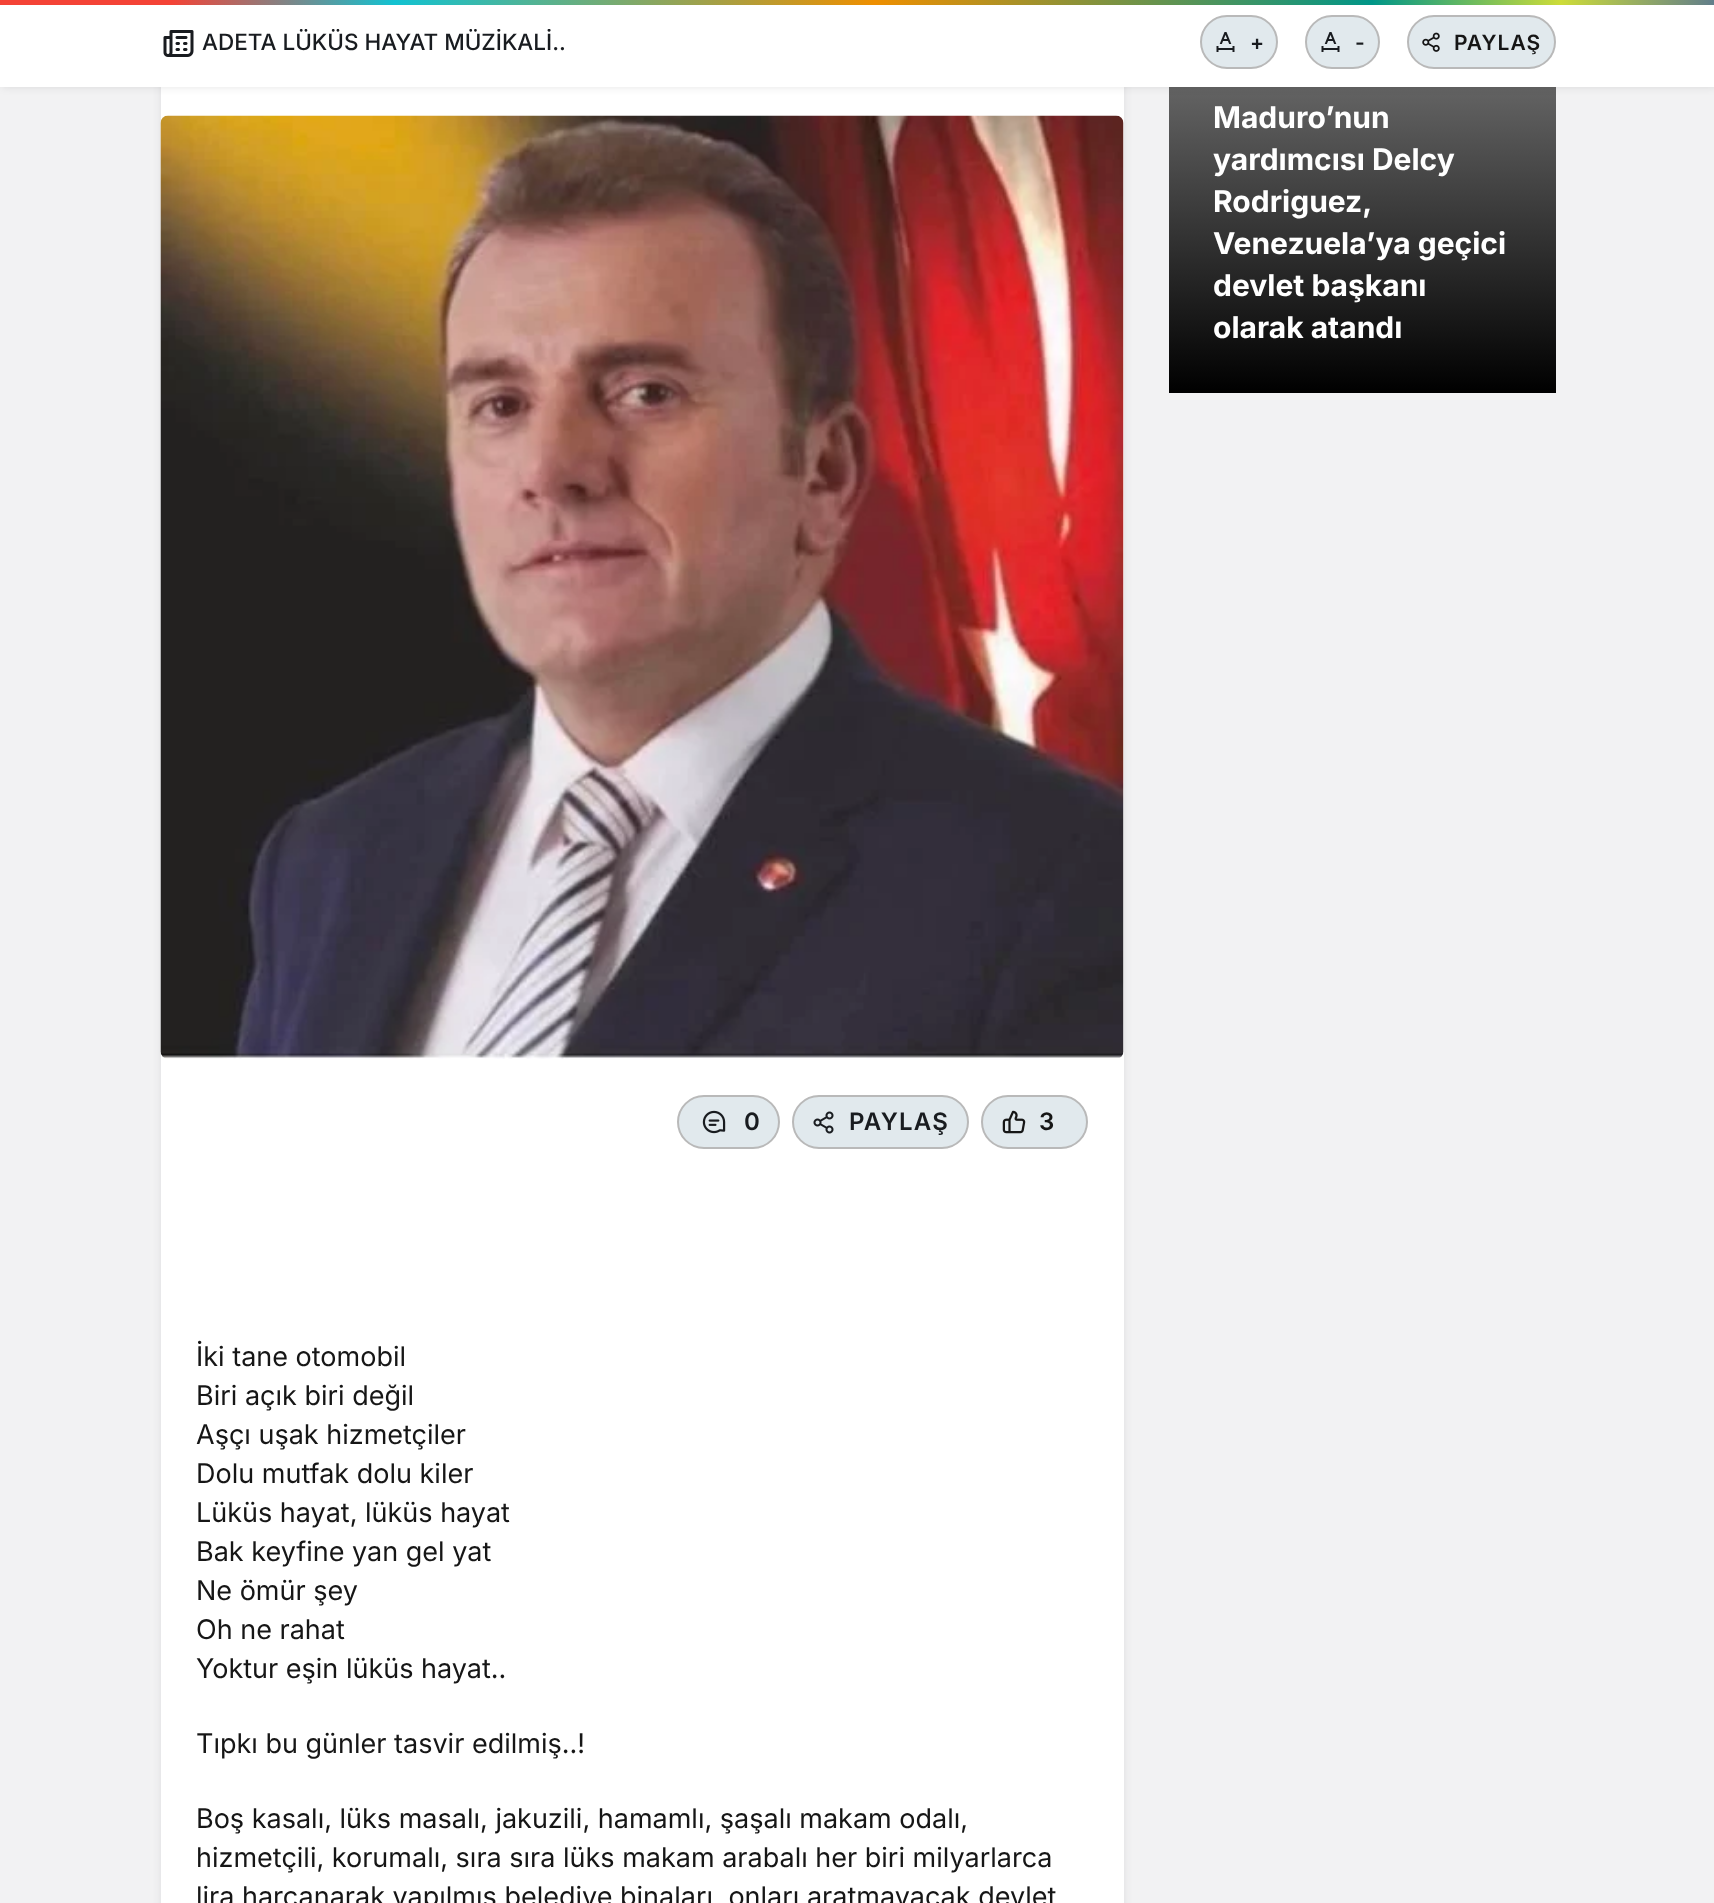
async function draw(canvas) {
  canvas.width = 1714
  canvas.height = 1903
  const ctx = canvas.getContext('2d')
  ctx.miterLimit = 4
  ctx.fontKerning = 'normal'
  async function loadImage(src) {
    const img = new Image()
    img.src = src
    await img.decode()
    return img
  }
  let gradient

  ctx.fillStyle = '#f2f2f3'
  ctx.fillRect(0, 0, 1714, 1903)
  ctx.fillStyle = '#32353d1a'
  ctx.filter = 'blur(4px)'
  ctx.beginPath()
  ctx.roundRect(161, -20, 963, 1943, 8)
  ctx.fill()
  ctx.filter = 'none'
  ctx.fillStyle = '#fff'
  ctx.fillRect(161, 87, 963, 1816)
  gradient = ctx.createLinearGradient(1362, -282, 1362, 393)
  gradient.addColorStop(0, '#dbdbdb')
  gradient.addColorStop(1, '#000')
  ctx.fillStyle = gradient
  ctx.fillRect(1169, 87, 387, 306)
  ctx.fillStyle = '#0000001a'
  ctx.filter = 'blur(4px)'
  ctx.beginPath()
  ctx.rect(2, 0, 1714, 87)
  ctx.fill()
  ctx.filter = 'none'
  ctx.fillStyle = '#fff'
  ctx.fillRect(0, 5, 1714, 82)
  gradient = ctx.createLinearGradient(0, 2.3, 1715, 2.2)
  gradient.addColorStop(0.1, '#f44336')
  gradient.addColorStop(0.23, '#12c2d1')
  gradient.addColorStop(0.51, '#ee8f00')
  gradient.addColorStop(0.8, '#009688')
  gradient.addColorStop(0.91, '#cddc39')
  gradient.addColorStop(1, '#607d8b')
  ctx.fillStyle = gradient
  ctx.fillRect(0, 0, 1714, 5)
  ctx.drawImage(await loadImage('image0.png'), 163, 30, 31, 27)
  ctx.font = '500 22.5px Inter'
  ctx.fillStyle = '#191c20'
  ctx.fillText('ADETA LÜKÜS HAYAT MÜZİKALİ..', 202, 50)
  ctx.fillStyle = '#e1e9ed'
  ctx.beginPath()
  ctx.roundRect(1201, 16, 76, 52, 26)
  ctx.fill()
  ctx.strokeStyle = '#b9b9b9'
  ctx.lineWidth = 2
  ctx.stroke()
  ctx.drawImage(await loadImage('image1.png'), 1216, 32, 19, 20)
  ctx.letterSpacing = '1px'
  ctx.font = '600 21px Inter'
  ctx.fillStyle = '#191c20'
  ctx.fillText('+', 1250, 50)
  ctx.fillStyle = '#e1e9ed'
  ctx.beginPath()
  ctx.roundRect(1306, 16, 73, 52, 26)
  ctx.fill()
  ctx.stroke()
  ctx.drawImage(await loadImage('image1.png'), 1321, 32, 19, 20)
  ctx.fillStyle = '#191c20'
  ctx.fillText('-', 1355, 50)
  ctx.fillStyle = '#e1e9ed'
  ctx.beginPath()
  ctx.roundRect(1408, 16, 147, 52, 26)
  ctx.fill()
  ctx.stroke()
  ctx.drawImage(await loadImage('image2.png'), 1422, 32, 18, 20)
  ctx.fillStyle = '#161616'
  ctx.fillText('PAYLAŞ', 1454, 50)
  ctx.letterSpacing = '0px'
  ctx.font = '27px Inter'
  ctx.fillText('İki tane otomobil', 196, 1366)
  ctx.fillText('Biri açık biri değil', 196, 1405)
  ctx.fillText('Aşçı uşak hizmetçiler', 196, 1444)
  ctx.fillText('Dolu mutfak dolu kiler', 196, 1483)
  ctx.fillText('Lüküs hayat, lüküs hayat', 196, 1522)
  ctx.fillText('Bak keyfine yan gel yat', 196, 1561)
  ctx.fillText('Ne ömür şey', 196, 1600)
  ctx.fillText('Oh ne rahat', 196, 1639)
  ctx.fillText('Yoktur eşin lüküs hayat..', 196, 1678)
  ctx.fillText('Tıpkı bu günler tasvir edilmiş..!', 196, 1753)
  ctx.fillText('Boş kasalı, lüks masalı, jakuzili, hamamlı, şaşalı makam odalı,', 196, 1828)
  ctx.fillText('hizmetçili, korumalı, sıra sıra lüks makam arabalı her biri milyarlarca', 196, 1867)
  ctx.fillText('lira harcanarak yapılmış belediye binaları, onları aratmayacak devlet', 196, 1906)
  ctx.drawImage(await loadImage('image3.png'), 160, 115, 964, 944)
  ctx.fillStyle = '#e1e9ed'
  ctx.beginPath()
  ctx.roundRect(678, 1096, 101, 52, 26)
  ctx.fill()
  ctx.stroke()
  ctx.drawImage(await loadImage('image4.png'), 702, 1110, 24, 24)
  ctx.letterSpacing = '1.25px'
  ctx.font = '600 24px Inter'
  ctx.fillStyle = '#191c20'
  ctx.fillText('0', 744, 1130)
  ctx.fillStyle = '#e1e9ed'
  ctx.beginPath()
  ctx.roundRect(793, 1096, 175, 52, 26)
  ctx.fill()
  ctx.stroke()
  ctx.drawImage(await loadImage('image5.png'), 813, 1111, 21, 23)
  ctx.fillStyle = '#191c20'
  ctx.fillText('PAYLAŞ', 849, 1130)
  ctx.fillStyle = '#e1e9ed'
  ctx.beginPath()
  ctx.roundRect(982, 1096, 105, 52, 26)
  ctx.fill()
  ctx.stroke()
  ctx.drawImage(await loadImage('image6.png'), 1002, 1110, 24, 24)
  ctx.fillStyle = '#161616'
  ctx.fillText('3', 1039, 1130)
  ctx.letterSpacing = '0px'
  ctx.font = 'bold 30px Inter'
  ctx.fillStyle = '#fff'
  ctx.fillText('Maduro’nun', 1213, 128)
  ctx.fillText('yardımcısı Delcy', 1213, 170)
  ctx.fillText('Rodriguez,', 1213, 212)
  ctx.fillText('Venezuela’ya geçici', 1213, 254)
  ctx.fillText('devlet başkanı', 1213, 296)
  ctx.fillText('olarak atandı', 1213, 338)
}

draw(document.querySelector('canvas'))
